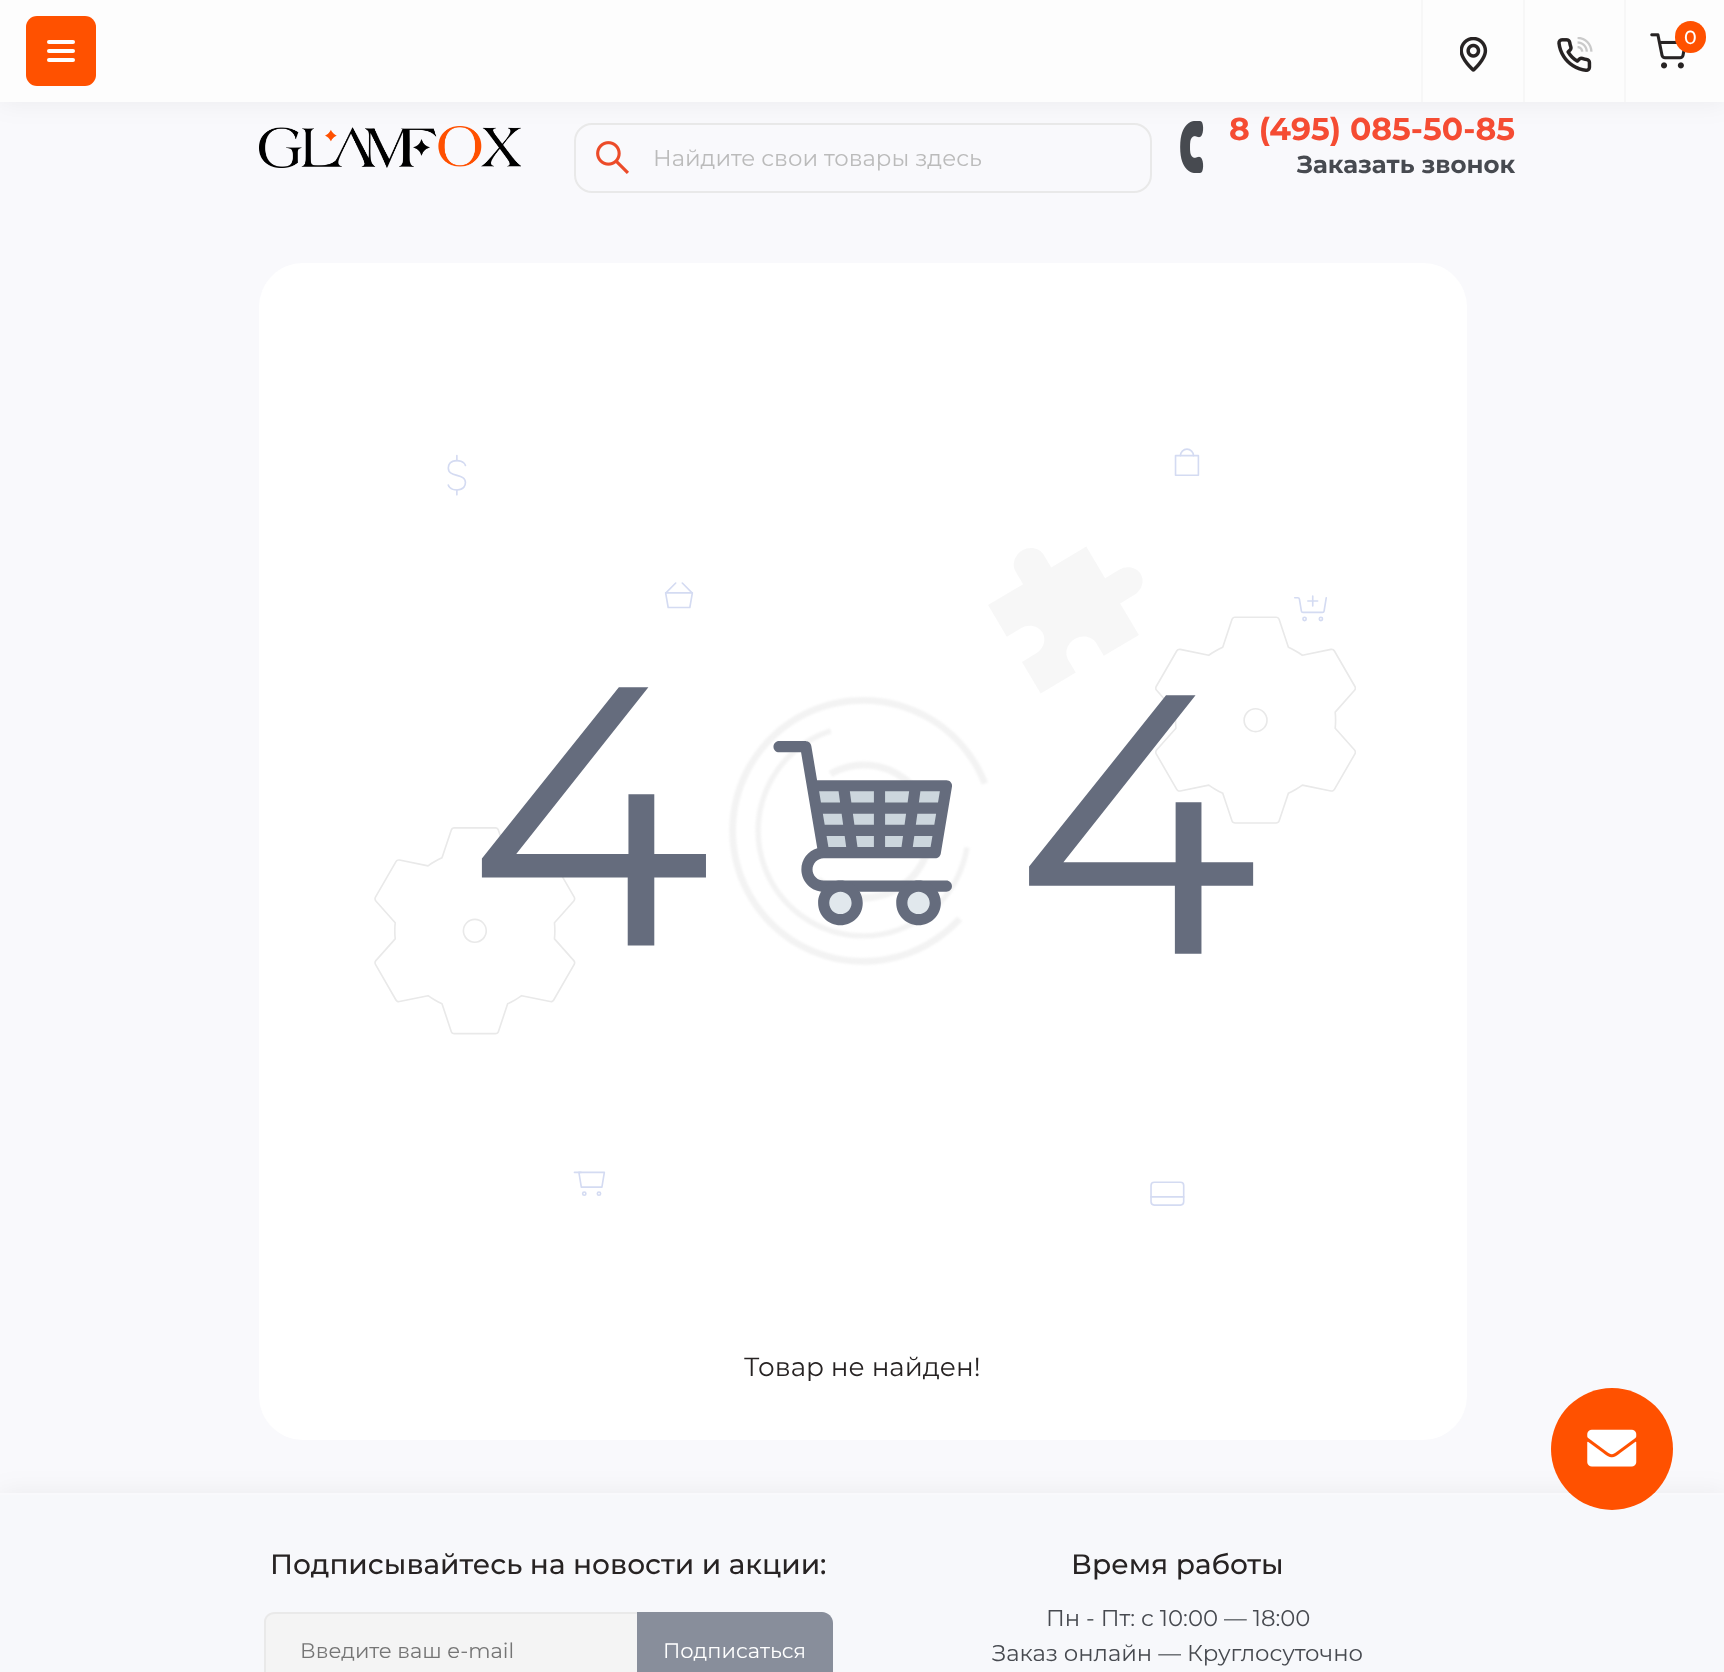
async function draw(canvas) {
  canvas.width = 1724
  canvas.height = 1672
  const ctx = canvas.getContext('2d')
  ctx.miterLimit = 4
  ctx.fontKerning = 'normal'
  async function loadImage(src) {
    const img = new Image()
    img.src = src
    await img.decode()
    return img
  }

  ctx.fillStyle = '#f9f9fc'
  ctx.fillRect(0, 0, 1724, 1672)
  ctx.drawImage(await loadImage('image3.png'), 259, 126, 262, 42)
  ctx.beginPath()
  ctx.roundRect(575, 124, 576, 68, 17)
  ctx.strokeStyle = '#e9e9e9'
  ctx.lineWidth = 2
  ctx.stroke()
  ctx.drawImage(await loadImage('image4.png'), 596, 141, 33, 33)
  ctx.drawImage(await loadImage('image5.png'), 1180, 121, 24, 52)
  ctx.fillStyle = '#0000000f'
  ctx.filter = 'blur(13px)'
  ctx.beginPath()
  ctx.rect(0, 0, 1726, 102)
  ctx.fill()
  ctx.filter = 'none'
  ctx.fillStyle = '#fdfdfd'
  ctx.fillRect(0, 0, 1724, 102)
  ctx.fillStyle = '#ff5100'
  ctx.beginPath()
  ctx.roundRect(26, 16, 70, 70, 11)
  ctx.fill()
  ctx.fillStyle = '#fff'
  ctx.beginPath()
  ctx.roundRect(47, 40, 28, 4, 2)
  ctx.fill()
  ctx.beginPath()
  ctx.roundRect(47, 49, 28, 4, 2)
  ctx.fill()
  ctx.beginPath()
  ctx.roundRect(47, 58, 28, 4, 2)
  ctx.fill()
  ctx.fillStyle = '#f7f7f7'
  ctx.fillRect(1421, 0, 2, 102)
  ctx.drawImage(await loadImage('image0.png'), 1460, 37, 28, 35)
  ctx.fillRect(1523, 0, 2, 102)
  ctx.drawImage(await loadImage('image1.png'), 1557, 37, 36, 35)
  ctx.fillRect(1624, 0, 2, 102)
  ctx.drawImage(await loadImage('image2.png'), 1650, 33, 36, 36)
  ctx.fillStyle = '#ff5100'
  ctx.beginPath()
  ctx.roundRect(1675, 21, 31, 32, 15.5)
  ctx.fill()
  ctx.font = '500 19px Montserrat'
  ctx.fillStyle = '#fff'
  ctx.fillText('0', 1684, 44)
  ctx.font = '22.75px Montserrat'
  ctx.fillStyle = '#bbb'
  ctx.fillText('Найдите свои товары здесь', 653, 166)
  ctx.font = 'bold 31.5px Montserrat'
  ctx.fillStyle = '#f54c33'
  ctx.fillText('8 (495) 085-50-85', 1229, 140)
  ctx.font = 'bold 24.5px Montserrat'
  ctx.fillStyle = '#474a50'
  ctx.fillText('Заказать звонок', 1297, 173)
  ctx.fillStyle = '#fff'
  ctx.beginPath()
  ctx.roundRect(259, 263, 1208, 1177, 44)
  ctx.fill()
  ctx.drawImage(await loadImage('image6.png'), 374, 448, 982, 758)
  ctx.font = '26.25px Montserrat'
  ctx.fillStyle = '#272323'
  ctx.fillText('Товар не найден!', 744, 1376)
  ctx.fillStyle = '#0000000f'
  ctx.filter = 'blur(13px)'
  ctx.beginPath()
  ctx.rect(0, 1493, 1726, 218)
  ctx.fill()
  ctx.filter = 'none'
  ctx.fillStyle = '#f7f8fb'
  ctx.fillRect(0, 1495, 1724, 177)
  ctx.fillStyle = '#f9f9fc'
  ctx.fillRect(0, 1493, 1724, 2)
  ctx.fillStyle = '#ff5100'
  ctx.beginPath()
  ctx.arc(1612, 1449, 61, 0, 2 * Math.PI)
  ctx.fill()
  ctx.drawImage(await loadImage('image7.png'), 1587, 1429, 50, 38)
  ctx.font = '500 28px Montserrat'
  ctx.fillStyle = '#272323'
  ctx.fillText('Подписывайтесь на новости и акции:', 270, 1574)
  ctx.fillStyle = '#f4f4f4'
  ctx.beginPath()
  ctx.moveTo(275, 1612)
  ctx.lineTo(637, 1612)
  ctx.lineTo(637, 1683)
  ctx.lineTo(275, 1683)
  ctx.bezierCurveTo(269, 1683, 264, 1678, 264, 1672)
  ctx.lineTo(264, 1623)
  ctx.bezierCurveTo(264, 1617, 269, 1612, 275, 1612)
  ctx.closePath()
  ctx.fill()
  ctx.fillStyle = '#e9e9e9'
  ctx.beginPath()
  ctx.moveTo(275, 1612)
  ctx.lineTo(637, 1612)
  ctx.lineTo(637, 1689)
  ctx.lineTo(275, 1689)
  ctx.bezierCurveTo(269, 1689, 264, 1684, 264, 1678)
  ctx.lineTo(264, 1622)
  ctx.bezierCurveTo(264, 1616, 269, 1612, 275, 1612)
  ctx.closePath()
  ctx.moveTo(275, 1614)
  ctx.lineTo(637, 1614)
  ctx.lineTo(637, 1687)
  ctx.lineTo(275, 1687)
  ctx.bezierCurveTo(270, 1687, 266, 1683, 266, 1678)
  ctx.lineTo(266, 1622)
  ctx.bezierCurveTo(266, 1617, 270, 1614, 275, 1614)
  ctx.closePath()
  ctx.fill('evenodd')
  ctx.font = '21px Montserrat'
  ctx.fillStyle = '#757575'
  ctx.fillText('Введите ваш e-mail', 300, 1658)
  ctx.fillStyle = '#888e9b'
  ctx.beginPath()
  ctx.moveTo(637, 1612)
  ctx.lineTo(822, 1612)
  ctx.bezierCurveTo(828, 1612, 833, 1617, 833, 1623)
  ctx.lineTo(833, 1672)
  ctx.bezierCurveTo(833, 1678, 828, 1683, 822, 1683)
  ctx.lineTo(637, 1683)
  ctx.closePath()
  ctx.fill()
  ctx.fillStyle = '#fff'
  ctx.fillText('Подписаться', 663, 1658)
  ctx.font = '500 28px Montserrat'
  ctx.fillStyle = '#272323'
  ctx.fillText('Время работы', 1071, 1574)
  ctx.font = '22.75px Montserrat'
  ctx.fillStyle = '#474a50'
  ctx.fillText('Пн - Пт: с 10:00 — 18:00', 1046, 1626)
  ctx.fillText('Заказ онлайн — Круглосуточно', 992, 1661)
}

draw(document.querySelector('canvas'))
